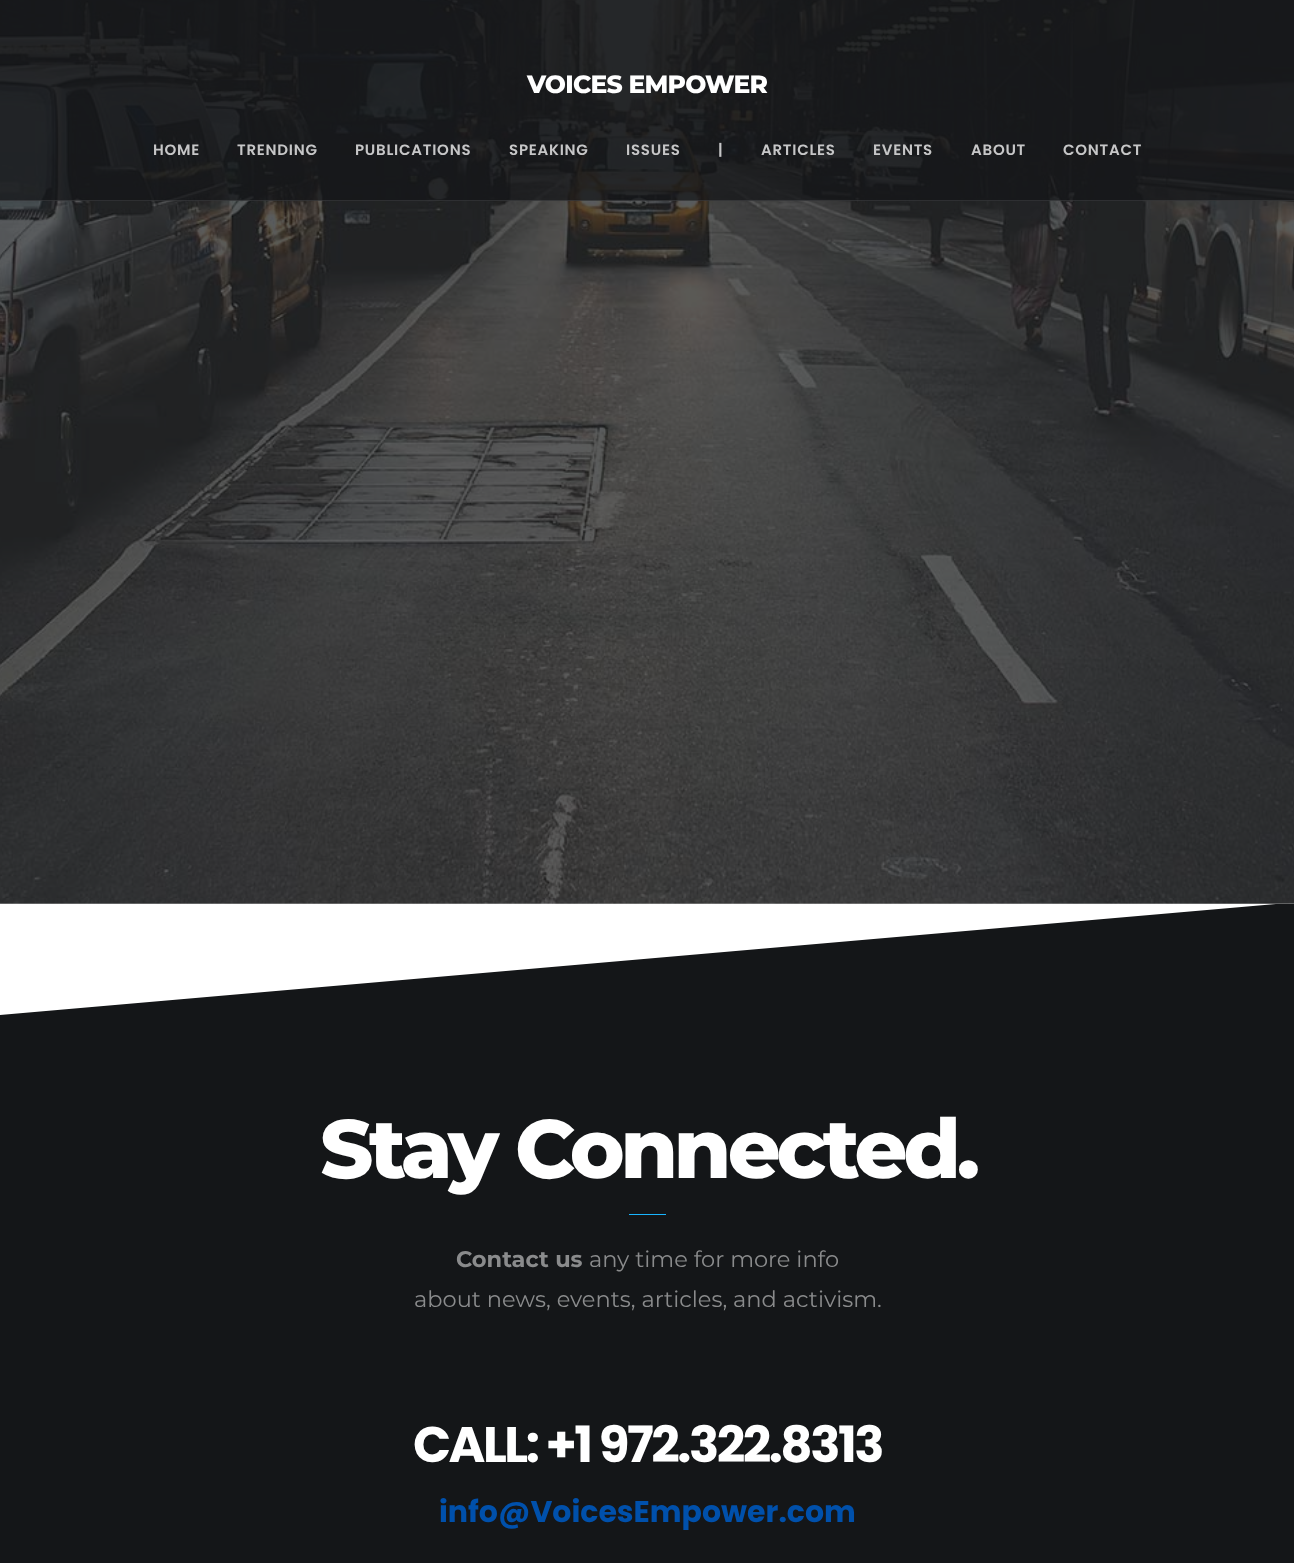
async function draw(canvas) {
  canvas.width = 1294
  canvas.height = 1563
  const ctx = canvas.getContext('2d')
  ctx.miterLimit = 4
  ctx.fontKerning = 'normal'
  async function loadImage(src) {
    const img = new Image()
    img.src = src
    await img.decode()
    return img
  }

  ctx.fillStyle = '#fff'
  ctx.fillRect(0, 0, 1294, 1563)
  ctx.drawImage(await loadImage('image0.png'), 0, 0, 1294, 904)
  ctx.fillStyle = '#141618bf'
  ctx.fillRect(0, 0, 1294, 201)
  ctx.fillStyle = '#ffffff1a'
  ctx.fillRect(0, 200, 1294, 1)
  ctx.letterSpacing = '-0.75px'
  ctx.font = '800 25px Montserrat'
  ctx.fillStyle = '#fff'
  ctx.fillText('VOICES EMPOWER', 527, 93)
  ctx.letterSpacing = '0.75px'
  ctx.font = '600 15px Poppins'
  ctx.fillStyle = '#c6c6c7'
  ctx.fillText('HOME', 153, 155)
  ctx.fillText('TRENDING', 237, 155)
  ctx.fillText('PUBLICATIONS', 355, 155)
  ctx.fillText('SPEAKING', 509, 155)
  ctx.fillText('ISSUES', 626, 155)
  ctx.fillText('|', 718, 155)
  ctx.fillText('ARTICLES', 761, 155)
  ctx.fillText('EVENTS', 873, 155)
  ctx.fillText('ABOUT', 971, 155)
  ctx.fillText('CONTACT', 1063, 155)
  ctx.fillStyle = '#141618'
  ctx.fillRect(0, 904, 1294, 659)
  ctx.save()
  ctx.beginPath()
  ctx.rect(0, 904, 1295, 111)
  ctx.clip()
  ctx.fillStyle = '#fff'
  ctx.beginPath()
  ctx.moveTo(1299, 902)
  ctx.lineTo(-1, 902)
  ctx.lineTo(-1, 1015)
  ctx.closePath()
  ctx.fill()
  ctx.restore()
  ctx.letterSpacing = '-4.1px'
  ctx.font = '800 82.5px Montserrat'
  ctx.fillStyle = '#fff'
  ctx.fillText('Stay Connected.', 320, 1178)
  ctx.fillStyle = '#19b5fe'
  ctx.fillRect(629, 1214, 37, 1)
  ctx.letterSpacing = '0px'
  ctx.font = 'bold 22.5px Montserrat'
  ctx.fillStyle = '#8a8b8c'
  ctx.fillText('Contact us', 456, 1267)
  ctx.font = '22.5px Montserrat'
  ctx.fillText('any time for more info', 589, 1267)
  ctx.fillText('about news, events, articles, and activism.', 414, 1307)
  ctx.letterSpacing = '-2.5px'
  ctx.font = 'bold 50px Poppins'
  ctx.fillStyle = '#fff'
  ctx.fillText('CALL: +1 972.322.8313', 413, 1462)
  ctx.letterSpacing = '0px'
  ctx.font = 'bold 30px Poppins'
  ctx.fillStyle = '#0050ab'
  ctx.fillText('info@VoicesEmpower.com', 439, 1522)
}

draw(document.querySelector('canvas'))
